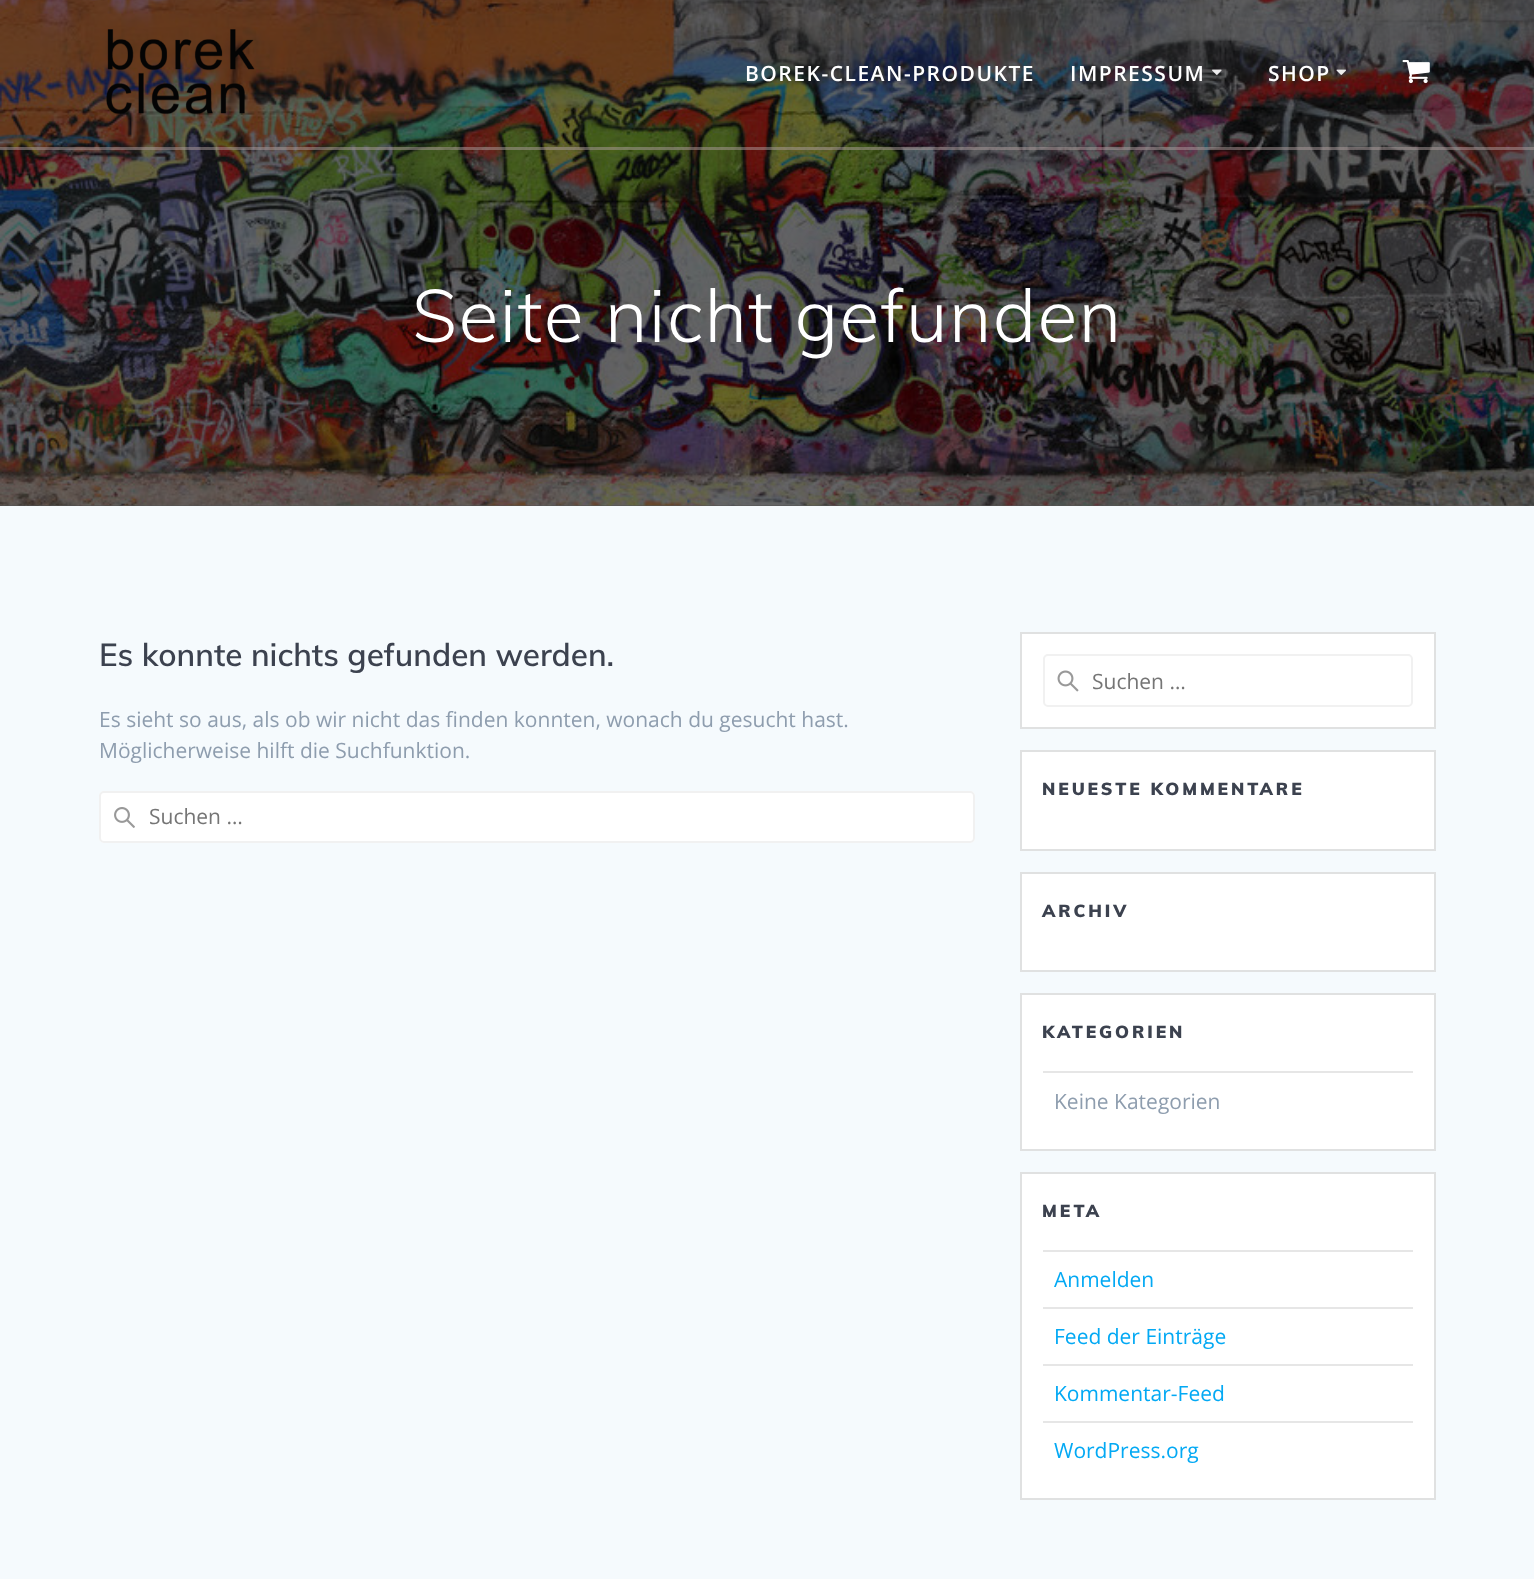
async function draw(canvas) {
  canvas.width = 1534
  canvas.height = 1579
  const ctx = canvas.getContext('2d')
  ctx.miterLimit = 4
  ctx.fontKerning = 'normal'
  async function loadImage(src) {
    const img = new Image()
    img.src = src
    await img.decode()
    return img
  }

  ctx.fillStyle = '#525253'
  ctx.fillRect(0, 0, 1534, 1579)
  ctx.drawImage(await loadImage('image4.png'), 0, 0, 1534, 506)
  ctx.drawImage(await loadImage('image5.png'), 575, 110, 816, 305)
  ctx.fillStyle = '#ad9e9e80'
  ctx.fillRect(0, 147, 1534, 3)
  ctx.drawImage(await loadImage('image0.png'), 106, 29, 149, 86)
  ctx.letterSpacing = '1.5px'
  ctx.font = '600 21px Open Sans'
  ctx.fillStyle = '#fff'
  ctx.fillText('BOREK-CLEAN-PRODUKTE', 745, 81)
  ctx.fillText('IMPRESSUM', 1070, 81)
  ctx.drawImage(await loadImage('image1.png'), 1212, 69, 10, 6)
  ctx.fillText('SHOP', 1268, 81)
  ctx.drawImage(await loadImage('image2.png'), 1336, 69, 10, 6)
  ctx.drawImage(await loadImage('image3.png'), 1402, 60, 28, 24)
  ctx.letterSpacing = '1.35px'
  ctx.font = '300 73.5px Muli'
  ctx.fillText('Seite nicht gefunden', 412, 342)
  ctx.fillStyle = '#f5fafd'
  ctx.fillRect(0, 506, 1534, 1073)
  ctx.letterSpacing = '0px'
  ctx.font = '600 31.5px Muli'
  ctx.fillStyle = '#3c424f'
  ctx.fillText('Es konnte nichts gefunden werden.', 99, 666)
  ctx.font = '21px Open Sans'
  ctx.fillStyle = '#8e9dae'
  ctx.fillText('Es sieht so aus, als ob wir nicht das finden konnten, wonach du gesucht hast.', 99, 727)
  ctx.fillText('Möglicherweise hilft die Suchfunktion.', 99, 758)
  ctx.fillStyle = '#fff'
  ctx.beginPath()
  ctx.roundRect(99, 791, 876, 52, 5)
  ctx.fill()
  ctx.drawImage(await loadImage('image6.png'), 114, 807, 21, 21)
  ctx.beginPath()
  ctx.roundRect(100, 792, 874, 50, 4)
  ctx.strokeStyle = '#f1f1f1'
  ctx.lineWidth = 2
  ctx.stroke()
  ctx.fillStyle = '#757575'
  ctx.fillText('Suchen …', 149, 824)
  ctx.fillStyle = '#fff'
  ctx.beginPath()
  ctx.rect(1021, 633, 414, 95)
  ctx.fill()
  ctx.strokeStyle = '#e0e1e1'
  ctx.stroke()
  ctx.drawImage(await loadImage('image7.png'), 1057, 670, 22, 22)
  ctx.beginPath()
  ctx.roundRect(1044, 655, 368, 51, 4)
  ctx.strokeStyle = '#f1f1f1'
  ctx.stroke()
  ctx.fillStyle = '#757575'
  ctx.fillText('Suchen …', 1092, 689)
  ctx.fillStyle = '#fff'
  ctx.beginPath()
  ctx.rect(1021, 751, 414, 99)
  ctx.fill()
  ctx.strokeStyle = '#e0e1e1'
  ctx.stroke()
  ctx.letterSpacing = '2.9px'
  ctx.font = '900 17.4px Muli'
  ctx.fillStyle = '#3c424f'
  ctx.fillText('NEUESTE KOMMENTARE', 1042, 795)
  ctx.fillStyle = '#fff'
  ctx.beginPath()
  ctx.rect(1021, 873, 414, 98)
  ctx.fill()
  ctx.stroke()
  ctx.fillStyle = '#3c424f'
  ctx.fillText('ARCHIV', 1042, 917)
  ctx.fillStyle = '#fff'
  ctx.beginPath()
  ctx.rect(1021, 994, 414, 156)
  ctx.fill()
  ctx.stroke()
  ctx.fillStyle = '#3c424f'
  ctx.fillText('KATEGORIEN', 1042, 1038)
  ctx.fillStyle = '#e6e6e6'
  ctx.fillRect(1043, 1071, 370, 2)
  ctx.letterSpacing = '0px'
  ctx.font = '21px Open Sans'
  ctx.fillStyle = '#8e9dae'
  ctx.fillText('Keine Kategorien', 1054, 1109)
  ctx.fillStyle = '#fff'
  ctx.beginPath()
  ctx.rect(1021, 1173, 414, 326)
  ctx.fill()
  ctx.stroke()
  ctx.letterSpacing = '2.9px'
  ctx.font = '900 17.4px Muli'
  ctx.fillStyle = '#3c424f'
  ctx.fillText('META', 1042, 1217)
  ctx.fillStyle = '#e6e6e6'
  ctx.fillRect(1043, 1250, 370, 2)
  ctx.letterSpacing = '0px'
  ctx.font = '21px Open Sans'
  ctx.fillStyle = '#03a9f4'
  ctx.fillText('Anmelden', 1054, 1287)
  ctx.fillStyle = '#e6e6e6'
  ctx.fillRect(1043, 1307, 370, 2)
  ctx.fillStyle = '#03a9f4'
  ctx.fillText('Feed der Einträge', 1054, 1344)
  ctx.fillStyle = '#e6e6e6'
  ctx.fillRect(1043, 1364, 370, 2)
  ctx.fillStyle = '#03a9f4'
  ctx.fillText('Kommentar-Feed', 1054, 1401)
  ctx.fillStyle = '#e6e6e6'
  ctx.fillRect(1043, 1421, 370, 2)
  ctx.fillStyle = '#03a9f4'
  ctx.fillText('WordPress.org', 1054, 1458)
}

draw(document.querySelector('canvas'))
